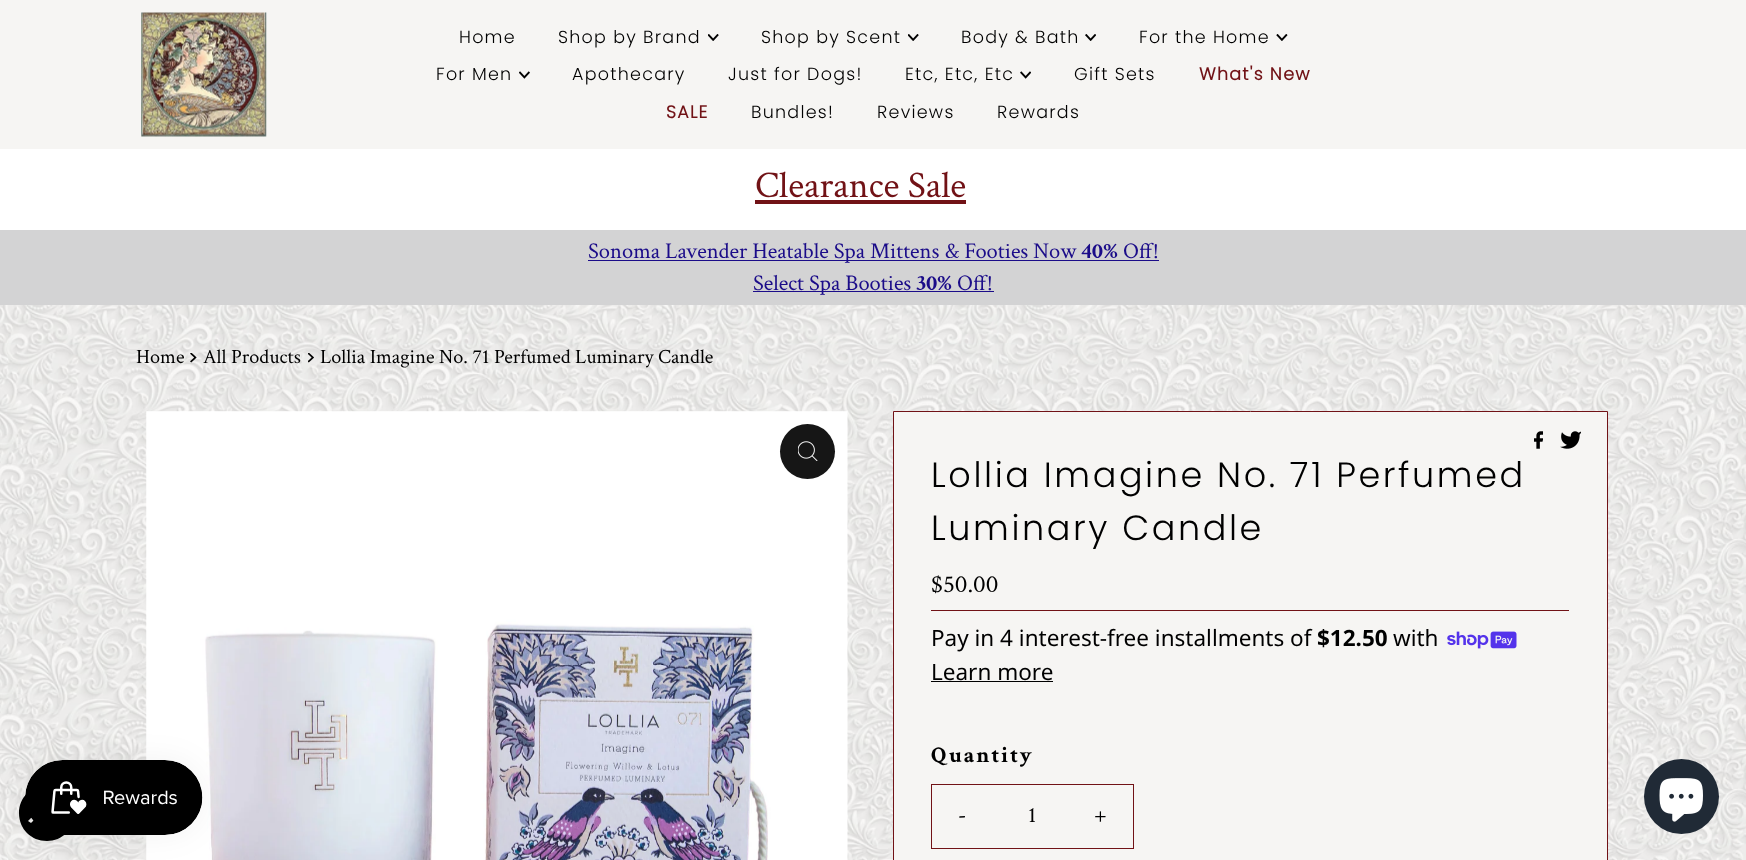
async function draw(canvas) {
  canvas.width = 1746
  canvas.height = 860
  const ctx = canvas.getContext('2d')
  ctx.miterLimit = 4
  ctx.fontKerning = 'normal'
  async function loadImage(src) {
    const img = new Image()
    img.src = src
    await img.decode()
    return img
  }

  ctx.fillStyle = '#f6f5f3'
  ctx.fillRect(0, 0, 1746, 860)
  ctx.drawImage(await loadImage('image0.png'), 0, 305, 1746, 555)
  ctx.drawImage(await loadImage('image10.png'), 146, 411, 702, 449)
  ctx.fillStyle = '#000'
  ctx.beginPath()
  ctx.moveTo(47, 785)
  ctx.bezierCurveTo(31, 785, 19, 798, 19, 813)
  ctx.bezierCurveTo(19, 829, 31, 841, 47, 841)
  ctx.bezierCurveTo(62, 841, 75, 829, 75, 813)
  ctx.bezierCurveTo(75, 798, 62, 785, 47, 785)
  ctx.closePath()
  ctx.moveTo(63, 823)
  ctx.lineTo(47, 807)
  ctx.lineTo(31, 823)
  ctx.lineTo(28, 821)
  ctx.lineTo(47, 802)
  ctx.lineTo(66, 821)
  ctx.closePath()
  ctx.fill('evenodd')
  ctx.fillStyle = '#0000000d'
  ctx.filter = 'blur(15.5px)'
  ctx.beginPath()
  ctx.roundRect(25, 760, 178, 75, 37.5)
  ctx.fill()
  ctx.filter = 'none'
  ctx.drawImage(await loadImage('image1.png'), 25, 760, 178, 75)
  ctx.drawImage(await loadImage('image2.png'), 141, 12, 126, 125)
  ctx.letterSpacing = '1.25px'
  ctx.font = '300 17.5px Poppins'
  ctx.fillStyle = '#000'
  ctx.fillText('Home', 459, 43)
  ctx.fillText('Shop by Brand', 558, 43)
  ctx.drawImage(await loadImage('image3.png'), 708, 34, 11, 7)
  ctx.fillText('Shop by Scent', 761, 43)
  ctx.drawImage(await loadImage('image3.png'), 908, 34, 11, 7)
  ctx.fillText('Body & Bath', 961, 43)
  ctx.drawImage(await loadImage('image4.png'), 1085, 34, 11, 7)
  ctx.fillText('For the Home', 1139, 43)
  ctx.drawImage(await loadImage('image5.png'), 1276, 34, 12, 7)
  ctx.fillText('For Men', 436, 80)
  ctx.drawImage(await loadImage('image6.png'), 519, 71, 11, 8)
  ctx.fillText('Apothecary', 572, 80)
  ctx.fillText('Just for Dogs!', 728, 80)
  ctx.fillText('Etc, Etc, Etc', 905, 80)
  ctx.drawImage(await loadImage('image7.png'), 1020, 71, 11, 8)
  ctx.fillText('Gift Sets', 1074, 80)
  ctx.font = 'bold 17.5px Poppins'
  ctx.fillStyle = '#711216'
  ctx.fillText('What\'s New', 1199, 80)
  ctx.fillText('SALE', 666, 118)
  ctx.font = '300 17.5px Poppins'
  ctx.fillStyle = '#000'
  ctx.fillText('Bundles!', 751, 118)
  ctx.fillText('Reviews', 877, 118)
  ctx.fillText('Rewards', 997, 118)
  ctx.fillStyle = '#fff'
  ctx.fillRect(0, 149, 1746, 81)
  ctx.letterSpacing = '0px'
  ctx.font = '37.5px Crimson Text'
  ctx.fillStyle = '#711216'
  ctx.fillText('Clearance Sale', 755, 197)
  ctx.fillRect(755, 200, 211, 4)
  ctx.fillStyle = '#d3d3d4'
  ctx.fillRect(0, 230, 1746, 75)
  ctx.fillStyle = '#1b0c89'
  ctx.fillRect(588, 260, 571, 1)
  ctx.font = '22.5px Crimson Text'
  ctx.fillText('Sonoma Lavender Heatable Spa Mittens & Footies Now', 588, 258)
  ctx.font = 'bold 22.5px Crimson Text'
  ctx.fillText('40%', 1081, 258)
  ctx.font = '22.5px Crimson Text'
  ctx.fillText('Off!', 1123, 258)
  ctx.fillRect(753, 291, 241, 1)
  ctx.fillText('Select Spa Booties', 753, 290)
  ctx.font = 'bold 22.5px Crimson Text'
  ctx.fillText('30%', 916, 290)
  ctx.font = '22.5px Crimson Text'
  ctx.fillText('Off!', 957, 290)
  ctx.font = '20.25px Crimson Text'
  ctx.fillStyle = '#000'
  ctx.fillText('Home', 136, 363)
  ctx.drawImage(await loadImage('image8.png'), 190, 353, 7, 10)
  ctx.fillText('All Products', 203, 363)
  ctx.drawImage(await loadImage('image9.png'), 308, 353, 6, 10)
  ctx.fillText('Lollia Imagine No. 71 Perfumed Luminary Candle', 320, 363)
  ctx.fillStyle = '#161616'
  ctx.beginPath()
  ctx.arc(807.5, 451.5, 27.5, 0, 2 * Math.PI)
  ctx.fill()
  ctx.drawImage(await loadImage('image11.png'), 798, 441, 20, 20)
  ctx.fillStyle = '#f6f5f3'
  ctx.beginPath()
  ctx.rect(893.5, 411.5, 714, 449)
  ctx.fill()
  ctx.strokeStyle = '#711216'
  ctx.stroke()
  ctx.drawImage(await loadImage('image12.png'), 1534, 431, 9, 18)
  ctx.drawImage(await loadImage('image13.png'), 1560, 431, 21, 18)
  ctx.letterSpacing = '2.6px'
  ctx.font = '300 35px Poppins'
  ctx.fillStyle = '#000'
  ctx.fillText('Lollia Imagine No. 71 Perfumed', 931, 487)
  ctx.fillText('Luminary Candle', 931, 540)
  ctx.fillStyle = '#711216'
  ctx.fillRect(931, 610, 638, 1)
  ctx.letterSpacing = '0px'
  ctx.font = '25px Crimson Text'
  ctx.fillStyle = '#000'
  ctx.fillText('$50.00', 931, 592)
  ctx.font = '22.5px Noto Sans'
  ctx.fillText('Pay in 4 interest-free installments of', 931, 646)
  ctx.font = 'bold 22.5px Noto Sans'
  ctx.fillText('$12.50', 1317, 646)
  ctx.font = '22.5px Noto Sans'
  ctx.fillText('with', 1393, 646)
  ctx.drawImage(await loadImage('image14.png'), 1447, 631, 70, 18)
  ctx.fillText('Learn more', 931, 680)
  ctx.fillRect(931, 681, 122, 1)
  ctx.letterSpacing = '1.75px'
  ctx.font = 'bold 22.5px Crimson Text'
  ctx.fillText('Quantity', 931, 762)
  ctx.strokeRect(931.5, 784.5, 202, 64)
  ctx.letterSpacing = '1.25px'
  ctx.font = '22.5px Crimson Text'
  ctx.fillText('-', 958, 822)
  ctx.letterSpacing = '0px'
  ctx.fillText('1', 1028, 822)
  ctx.letterSpacing = '1.25px'
  ctx.fillText('+', 1094, 822)
  ctx.fillStyle = '#202a36'
  ctx.beginPath()
  ctx.arc(1681.5, 796.5, 37.5, 0, 2 * Math.PI)
  ctx.fill()
  ctx.drawImage(await loadImage('image15.png'), 1659, 778, 44, 44)
}

draw(document.querySelector('canvas'))
